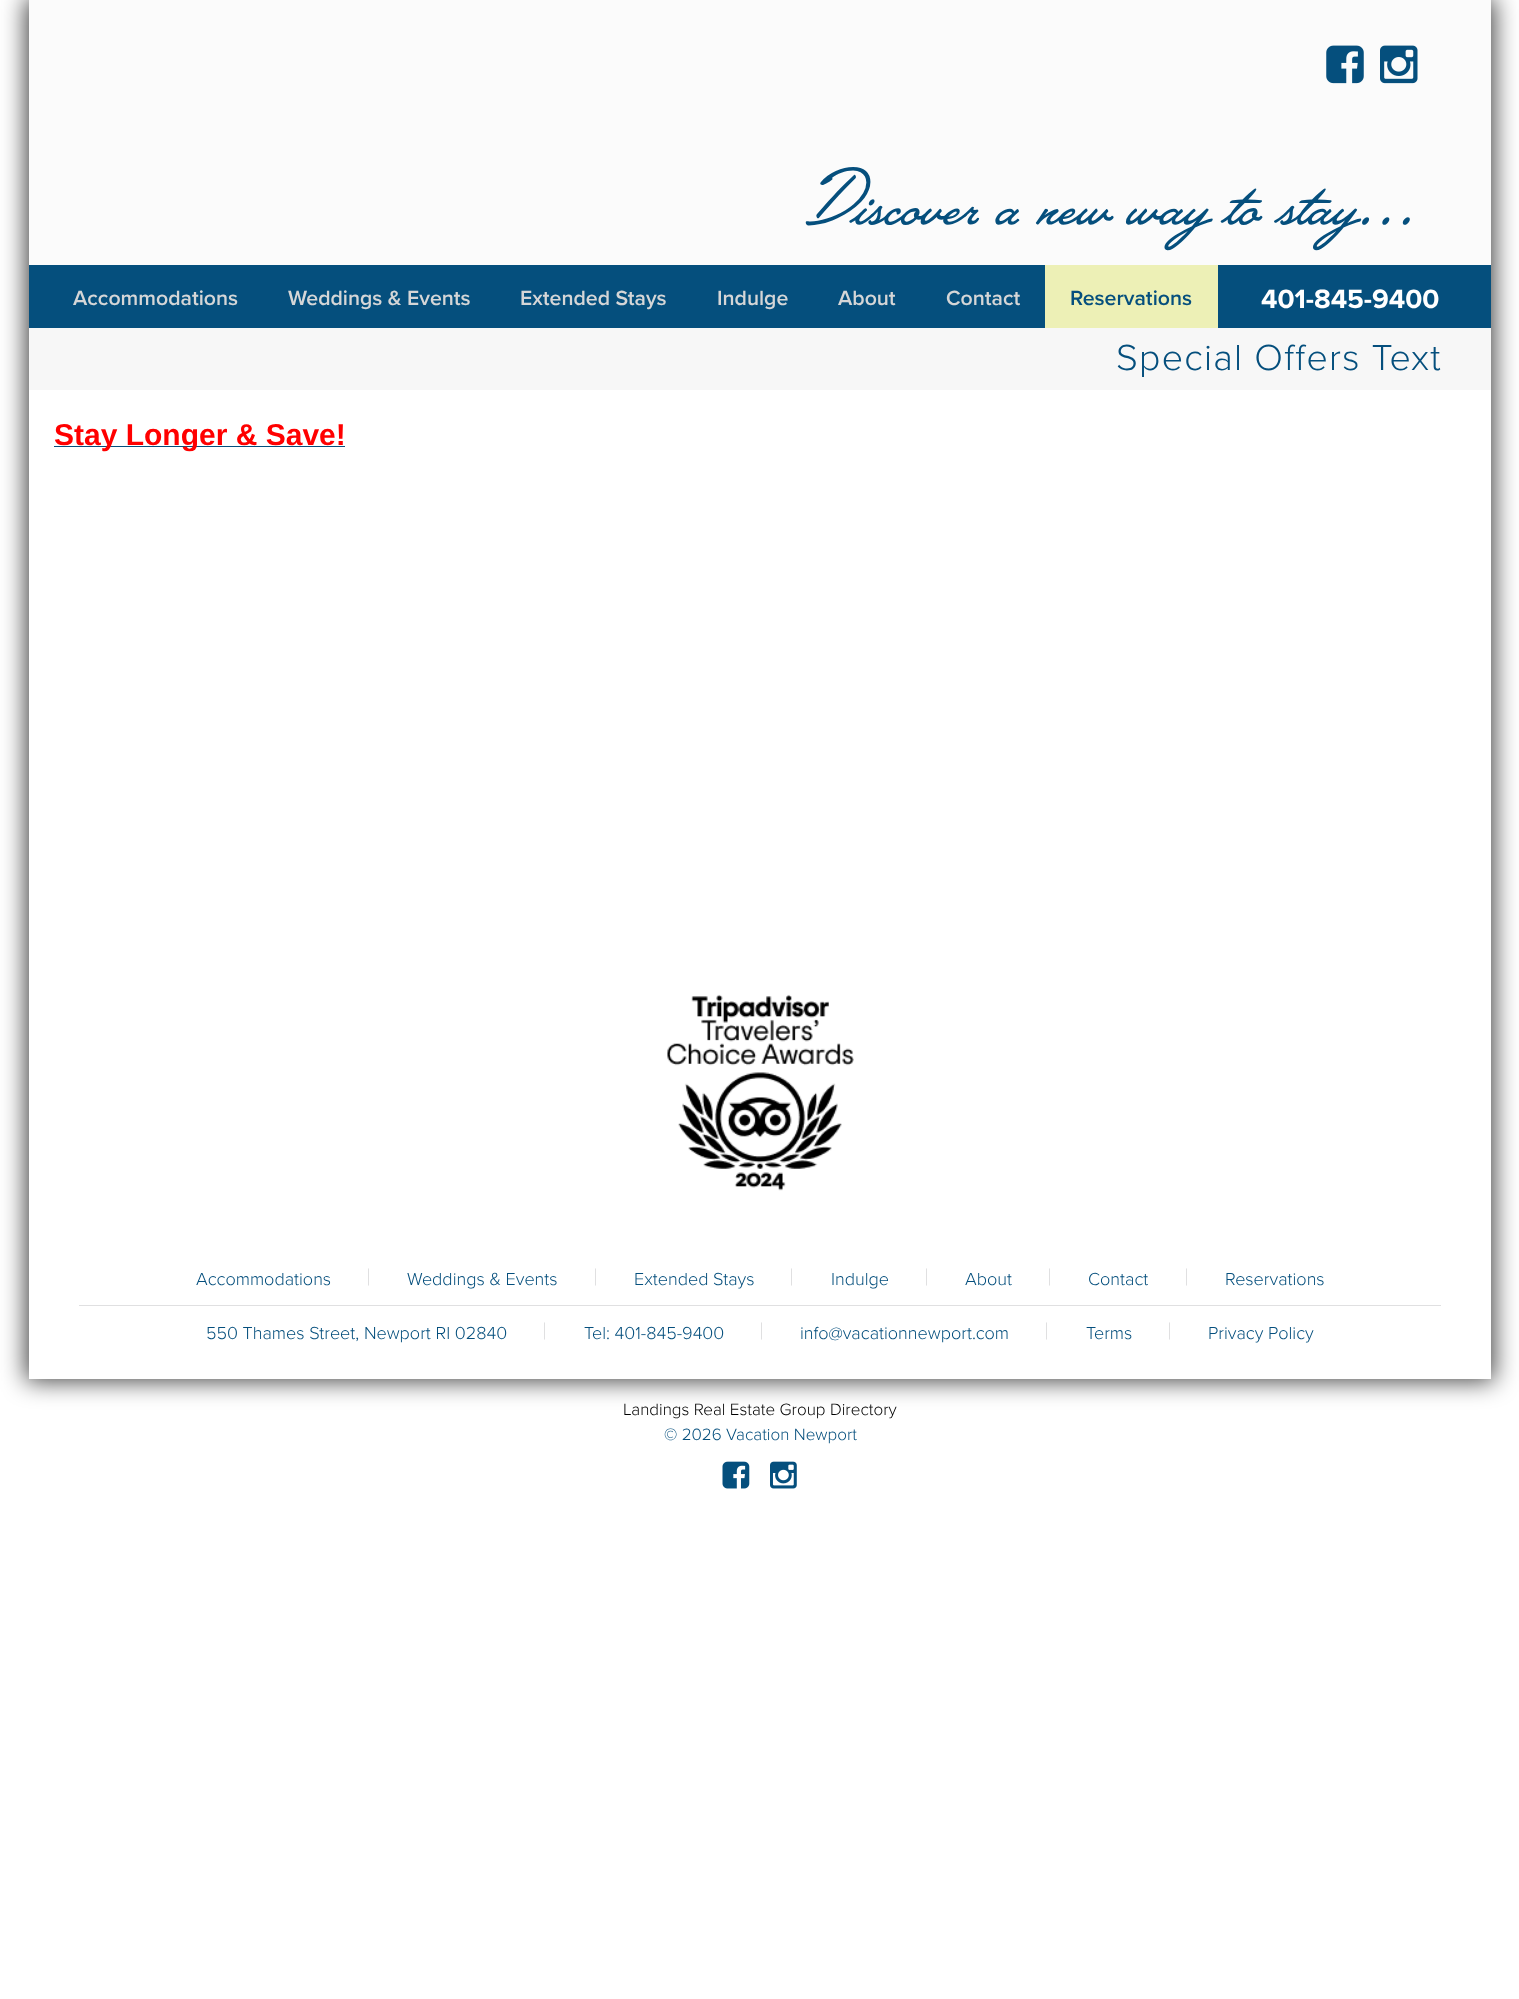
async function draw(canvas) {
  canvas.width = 1519
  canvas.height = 1999
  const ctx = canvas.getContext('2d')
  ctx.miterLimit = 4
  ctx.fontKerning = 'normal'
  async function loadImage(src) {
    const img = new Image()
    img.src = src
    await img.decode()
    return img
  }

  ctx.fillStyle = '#fff'
  ctx.fillRect(0, 0, 1519, 1999)
  ctx.save()
  ctx.beginPath()
  ctx.moveTo(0, 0)
  ctx.lineTo(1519, 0)
  ctx.lineTo(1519, 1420)
  ctx.lineTo(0, 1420)
  ctx.closePath()
  ctx.moveTo(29, 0)
  ctx.lineTo(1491, 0)
  ctx.lineTo(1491, 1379)
  ctx.lineTo(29, 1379)
  ctx.closePath()
  ctx.clip('evenodd')
  ctx.fillStyle = '#000000bf'
  ctx.filter = 'blur(12.5px)'
  ctx.beginPath()
  ctx.rect(26, -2, 1468, 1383)
  ctx.fill()
  ctx.filter = 'none'
  ctx.restore()
  ctx.fillStyle = '#fbfbfb'
  ctx.fillRect(29, 0, 1462, 265)
  ctx.drawImage(await loadImage('image0.png'), 1326, 45, 38, 39)
  ctx.drawImage(await loadImage('image1.png'), 1380, 45, 38, 39)
  ctx.font = '100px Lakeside'
  ctx.fillStyle = '#054f7d'
  ctx.fillText('Discover a new way to stay...', 806, 224)
  ctx.fillRect(29, 265, 1462, 63)
  ctx.font = '600 21.25px Proxima Nova'
  ctx.fillStyle = '#d5d6d7'
  ctx.fillText('Accommodations', 73, 305)
  ctx.fillText('Weddings & Events', 288, 305)
  ctx.fillText('Extended Stays', 520, 305)
  ctx.fillText('Indulge', 717, 305)
  ctx.fillText('About', 838, 305)
  ctx.fillText('Contact', 946, 305)
  ctx.fillStyle = '#edf0b6'
  ctx.fillRect(1045, 265, 173, 63)
  ctx.fillStyle = '#054f7d'
  ctx.fillText('Reservations', 1070, 305)
  ctx.font = 'bold 27.5px Proxima Nova'
  ctx.fillStyle = '#fff'
  ctx.fillText('401-845-9400', 1261, 308)
  ctx.fillStyle = '#f7f7f7'
  ctx.fillRect(29, 328, 1462, 62)
  ctx.letterSpacing = '1.25px'
  ctx.font = '300 37.5px Proxima Nova'
  ctx.fillStyle = '#054f7d'
  ctx.fillText('Special Offers Text', 1116, 370)
  ctx.fillRect(54, 446, 291, 1)
  ctx.letterSpacing = '0px'
  ctx.font = 'bold 30px Liberation Sans'
  ctx.fillStyle = '#f00'
  ctx.fillText('Stay Longer & Save!', 54, 445)
  ctx.drawImage(await loadImage('image2.png'), 667, 994, 187, 197)
  ctx.font = '300 18px Proxima Nova'
  ctx.fillStyle = '#054f7d'
  ctx.fillText('Accommodations', 196, 1285)
  ctx.font = '300 24px Proxima Nova'
  ctx.fillStyle = '#e0e0e1'
  ctx.fillText('|', 366, 1285)
  ctx.font = '300 18px Proxima Nova'
  ctx.fillStyle = '#054f7d'
  ctx.fillText('Weddings & Events', 407, 1285)
  ctx.font = '300 24px Proxima Nova'
  ctx.fillStyle = '#e0e0e1'
  ctx.fillText('|', 593, 1285)
  ctx.font = '300 18px Proxima Nova'
  ctx.fillStyle = '#054f7d'
  ctx.fillText('Extended Stays', 634, 1285)
  ctx.font = '300 24px Proxima Nova'
  ctx.fillStyle = '#e0e0e1'
  ctx.fillText('|', 789, 1285)
  ctx.font = '300 18px Proxima Nova'
  ctx.fillStyle = '#054f7d'
  ctx.fillText('Indulge', 831, 1285)
  ctx.font = '300 24px Proxima Nova'
  ctx.fillStyle = '#e0e0e1'
  ctx.fillText('|', 924, 1285)
  ctx.font = '300 18px Proxima Nova'
  ctx.fillStyle = '#054f7d'
  ctx.fillText('About', 965, 1285)
  ctx.font = '300 24px Proxima Nova'
  ctx.fillStyle = '#e0e0e1'
  ctx.fillText('|', 1047, 1285)
  ctx.font = '300 18px Proxima Nova'
  ctx.fillStyle = '#054f7d'
  ctx.fillText('Contact', 1088, 1285)
  ctx.font = '300 24px Proxima Nova'
  ctx.fillStyle = '#e0e0e1'
  ctx.fillText('|', 1184, 1285)
  ctx.font = '300 18px Proxima Nova'
  ctx.fillStyle = '#054f7d'
  ctx.fillText('Reservations', 1225, 1285)
  ctx.fillStyle = '#e0e0e1'
  ctx.fillRect(79, 1305, 1362, 1)
  ctx.fillStyle = '#054f7d'
  ctx.fillText('550 Thames Street, Newport RI 02840', 206, 1339)
  ctx.font = '300 24px Proxima Nova'
  ctx.fillStyle = '#e0e0e1'
  ctx.fillText('|', 542, 1339)
  ctx.font = '300 18px Proxima Nova'
  ctx.fillStyle = '#054f7d'
  ctx.fillText('Tel: 401-845-9400', 584, 1339)
  ctx.font = '300 24px Proxima Nova'
  ctx.fillStyle = '#e0e0e1'
  ctx.fillText('|', 759, 1339)
  ctx.font = '300 18px Proxima Nova'
  ctx.fillStyle = '#054f7d'
  ctx.fillText('info@vacationnewport.com', 800, 1339)
  ctx.font = '300 24px Proxima Nova'
  ctx.fillStyle = '#e0e0e1'
  ctx.fillText('|', 1044, 1339)
  ctx.font = '300 18px Proxima Nova'
  ctx.fillStyle = '#054f7d'
  ctx.fillText('Terms', 1086, 1339)
  ctx.font = '300 24px Proxima Nova'
  ctx.fillStyle = '#e0e0e1'
  ctx.fillText('|', 1167, 1339)
  ctx.font = '300 18px Proxima Nova'
  ctx.fillStyle = '#054f7d'
  ctx.fillText('Privacy Policy', 1208, 1339)
  ctx.font = '300 17px Proxima Nova'
  ctx.fillStyle = '#000'
  ctx.fillText('Landings Real Estate Group Directory', 623, 1415)
  ctx.fillStyle = '#054f7d'
  ctx.fillText('© 2026 Vacation Newport', 664, 1440)
  ctx.drawImage(await loadImage('image3.png'), 722, 1461, 28, 28)
  ctx.drawImage(await loadImage('image4.png'), 770, 1461, 27, 28)
}

draw(document.querySelector('canvas'))
